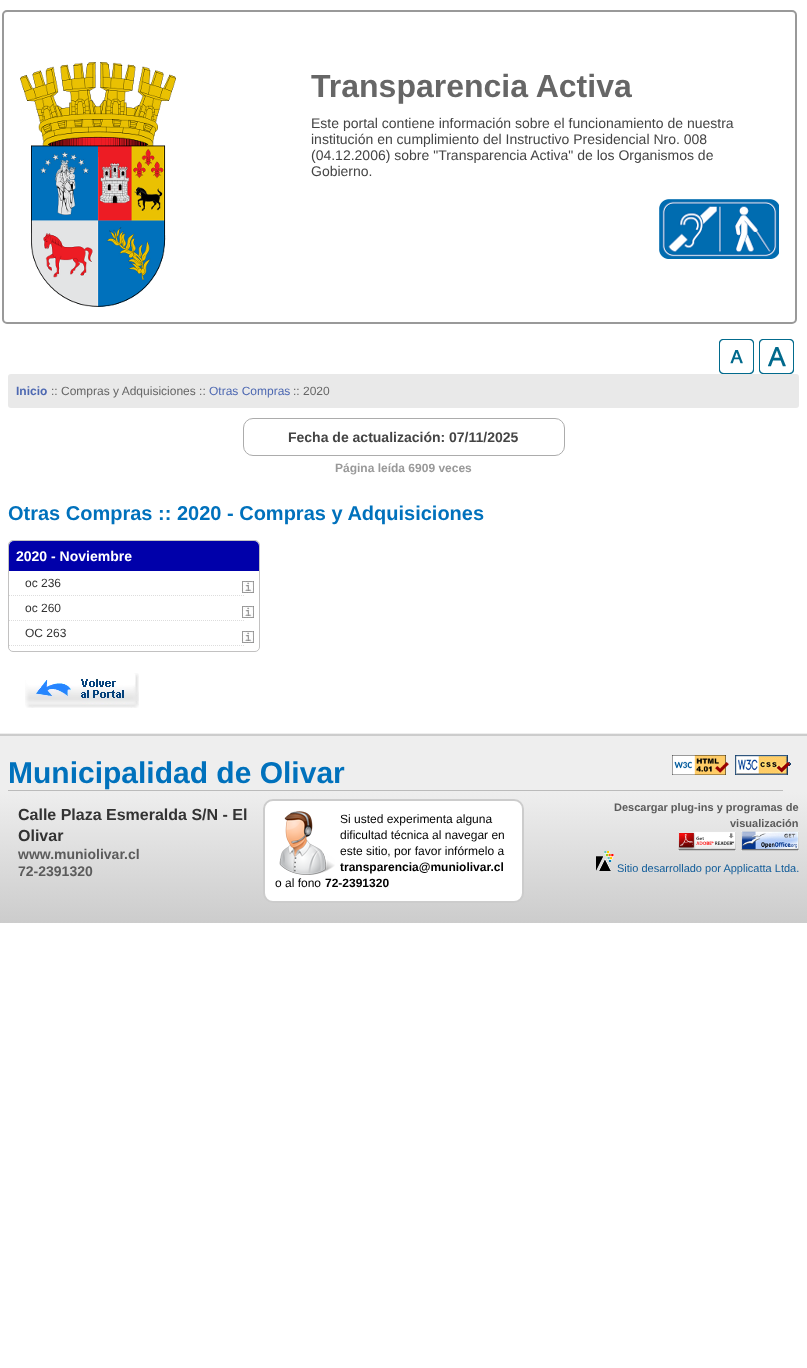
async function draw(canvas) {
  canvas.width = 807
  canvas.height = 1368
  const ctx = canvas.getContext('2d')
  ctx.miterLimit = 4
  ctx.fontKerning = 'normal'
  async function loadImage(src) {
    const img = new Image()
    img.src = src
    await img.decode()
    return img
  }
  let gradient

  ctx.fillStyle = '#fff'
  ctx.fillRect(0, 0, 807, 1368)
  ctx.beginPath()
  ctx.roundRect(3, 11, 793, 312, 4)
  ctx.strokeStyle = '#999'
  ctx.lineWidth = 2
  ctx.stroke()
  ctx.drawImage(await loadImage('image0.png'), 20, 62, 156, 245)
  ctx.font = 'bold 32px Liberation Sans'
  ctx.fillStyle = '#666'
  ctx.fillText('Transparencia Activa', 311, 97)
  ctx.font = '14px Liberation Sans'
  ctx.fillStyle = '#444'
  ctx.fillText('Este portal contiene información sobre el funcionamiento de nuestra', 311, 128)
  ctx.fillText('institución en cumplimiento del Instructivo Presidencial Nro. 008', 311, 144)
  ctx.fillText('(04.12.2006) sobre "Transparencia Activa" de los Organismos de', 311, 160)
  ctx.fillText('Gobierno.', 311, 176)
  ctx.drawImage(await loadImage('image1.png'), 659, 199, 120, 60)
  ctx.drawImage(await loadImage('image2.png'), 719, 339, 35, 35)
  ctx.drawImage(await loadImage('image3.png'), 759, 339, 35, 35)
  ctx.fillStyle = '#e9e9e9'
  ctx.beginPath()
  ctx.roundRect(8, 374, 791, 34, 3)
  ctx.fill()
  ctx.font = 'bold 12px Liberation Sans'
  ctx.fillStyle = '#4e69b2'
  ctx.fillText('Inicio', 16, 395)
  ctx.font = '12px Liberation Sans'
  ctx.fillStyle = '#666'
  ctx.fillText(':: Compras y Adquisiciones ::', 51, 395)
  ctx.fillStyle = '#4e69b2'
  ctx.fillText('Otras Compras', 209, 395)
  ctx.fillStyle = '#666'
  ctx.fillText(':: 2020', 293, 395)
  ctx.beginPath()
  ctx.roundRect(243.5, 418.5, 321, 37, 9.5)
  ctx.strokeStyle = '#acacac'
  ctx.lineWidth = 1
  ctx.stroke()
  ctx.font = 'bold 14px Liberation Sans'
  ctx.fillStyle = '#444'
  ctx.fillText('Fecha de actualización: 07/11/2025', 288, 442)
  ctx.font = 'bold 12px Liberation Sans'
  ctx.fillStyle = '#999'
  ctx.fillText('Página leída 6909 veces', 335, 472)
  ctx.font = 'bold 20px Liberation Sans'
  ctx.fillStyle = '#0071bc'
  ctx.fillText('Otras Compras :: 2020 - Compras y Adquisiciones', 8, 520)
  ctx.beginPath()
  ctx.roundRect(8.5, 540.5, 251, 111, 4.5)
  ctx.strokeStyle = '#c2c1c1'
  ctx.stroke()
  ctx.fillStyle = '#00a'
  ctx.beginPath()
  ctx.roundRect(9, 541, 250, 30, [5, 5, 0, 0])
  ctx.fill()
  ctx.font = 'bold 14px Liberation Sans'
  ctx.fillStyle = '#fff'
  ctx.fillText('2020 - Noviembre', 16, 561)
  ctx.beginPath()
  ctx.moveTo(9, 595.5)
  ctx.lineTo(245, 595.5)
  ctx.strokeStyle = '#ddd'
  ctx.setLineDash([1, 1])
  ctx.stroke()
  ctx.font = '12px Liberation Sans'
  ctx.fillStyle = '#333'
  ctx.fillText('oc 236', 25, 587)
  ctx.drawImage(await loadImage('image4.png'), 242, 581, 12, 12)
  ctx.beginPath()
  ctx.moveTo(9, 620.5)
  ctx.lineTo(245, 620.5)
  ctx.stroke()
  ctx.fillText('oc 260', 25, 612)
  ctx.drawImage(await loadImage('image4.png'), 242, 606, 12, 12)
  ctx.beginPath()
  ctx.moveTo(9, 645.5)
  ctx.lineTo(245, 645.5)
  ctx.stroke()
  ctx.fillText('OC 263', 25, 637)
  ctx.drawImage(await loadImage('image4.png'), 242, 631, 12, 12)
  ctx.drawImage(await loadImage('image5.png'), 25, 673, 114, 35)
  ctx.fillStyle = '#eee'
  ctx.fillRect(0, 733, 807, 1)
  gradient = ctx.createLinearGradient(404, 549, 404, 736)
  gradient.addColorStop(0.3, '#eee')
  gradient.addColorStop(1, '#ccc')
  ctx.fillStyle = gradient
  ctx.fillRect(0, 734, 807, 2)
  gradient = ctx.createLinearGradient(404, 736, 404, 923)
  gradient.addColorStop(0.3, '#eee')
  gradient.addColorStop(1, '#ccc')
  ctx.fillStyle = gradient
  ctx.fillRect(0, 736, 807, 187)
  ctx.fillStyle = '#bbb'
  ctx.fillRect(8, 790, 775, 1)
  ctx.font = 'bold 30px Liberation Sans'
  ctx.fillStyle = '#0071bc'
  ctx.fillText('Municipalidad de Olivar', 8, 783)
  ctx.drawImage(await loadImage('image6.png'), 672, 755, 57, 20)
  ctx.drawImage(await loadImage('image7.png'), 735, 755, 56, 20)
  ctx.font = 'bold 16px Liberation Sans'
  ctx.fillStyle = '#333'
  ctx.fillText('Calle Plaza Esmeralda S/N - El', 18, 820)
  ctx.fillText('Olivar', 18, 841)
  ctx.font = 'bold 14px Liberation Sans'
  ctx.fillStyle = '#5b5b5b'
  ctx.fillText('www.muniolivar.cl', 18, 859)
  ctx.fillText('72-2391320', 18, 876)
  ctx.fillStyle = '#fff'
  ctx.beginPath()
  ctx.roundRect(264, 800, 259, 102, 9)
  ctx.fill()
  ctx.strokeStyle = '#ccc'
  ctx.lineWidth = 2
  ctx.setLineDash([])
  ctx.stroke()
  ctx.drawImage(await loadImage('image8.png'), 279, 811, 56, 64)
  ctx.font = '12px Liberation Sans'
  ctx.fillStyle = '#000'
  ctx.fillText('Si usted experimenta alguna', 340, 823)
  ctx.fillText('dificultad técnica al navegar en', 340, 839)
  ctx.fillText('este sitio, por favor infórmelo a', 340, 855)
  ctx.font = 'bold 12px Liberation Sans'
  ctx.fillText('transparencia@muniolivar.cl', 340, 871)
  ctx.font = '12px Liberation Sans'
  ctx.fillText('o al fono', 275, 887)
  ctx.font = 'bold 12px Liberation Sans'
  ctx.fillText('72-2391320', 325, 887)
  ctx.font = 'bold 11px Liberation Sans'
  ctx.fillStyle = '#5b5b5b'
  ctx.fillText('Descargar plug-ins y programas de', 614, 811)
  ctx.fillText('visualización', 730, 827)
  ctx.drawImage(await loadImage('image9.png'), 678, 831, 58, 20)
  ctx.drawImage(await loadImage('image10.png'), 741, 831, 58, 20)
  ctx.drawImage(await loadImage('image11.png'), 596, 851, 18, 20)
  ctx.font = '11px Liberation Sans'
  ctx.fillStyle = '#115c99'
  ctx.fillText('Sitio desarrollado por Applicatta Ltda.', 617, 872)
}

draw(document.querySelector('canvas'))
